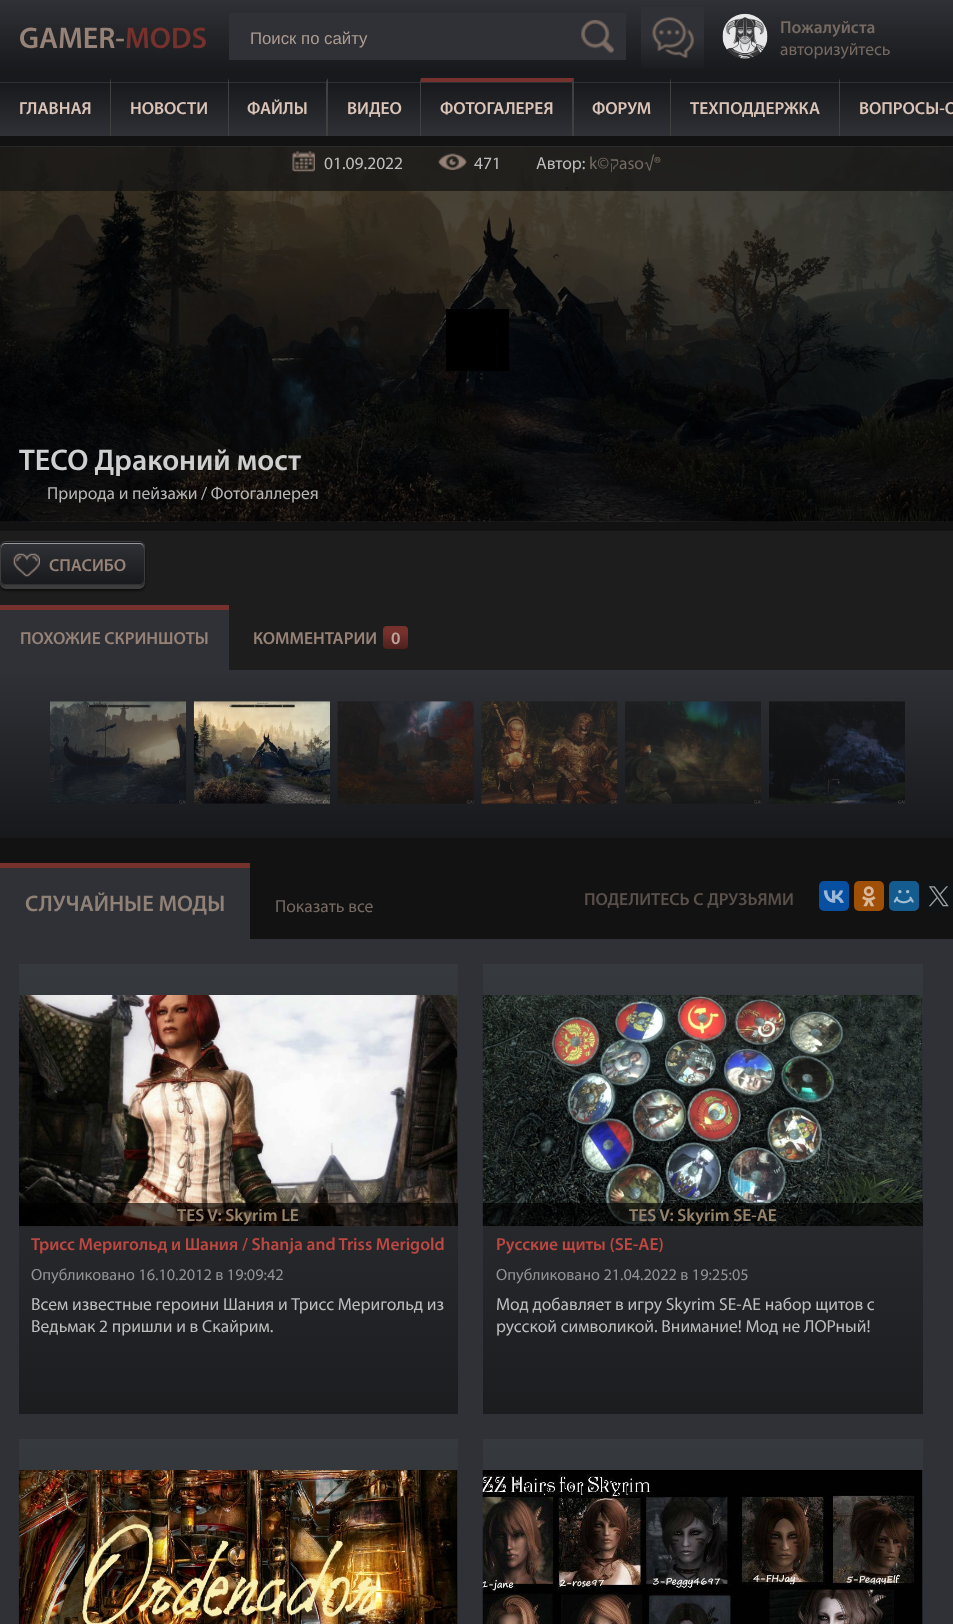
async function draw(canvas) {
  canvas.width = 953
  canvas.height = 1624
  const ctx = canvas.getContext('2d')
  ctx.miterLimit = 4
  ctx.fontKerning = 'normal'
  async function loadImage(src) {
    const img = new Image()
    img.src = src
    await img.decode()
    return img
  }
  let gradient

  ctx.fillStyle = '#fff'
  ctx.fillRect(0, 0, 953, 1624)
  gradient = ctx.createLinearGradient(477, 0, 477, 145)
  gradient.addColorStop(0, '#2f3136')
  gradient.addColorStop(1, '#000')
  ctx.fillStyle = gradient
  ctx.fillRect(0, 0, 953, 73)
  ctx.font = '600 30px Myriad'
  ctx.fillStyle = '#978277'
  ctx.fillText('GAMER-', 19, 48)
  ctx.fillStyle = '#77312d'
  ctx.fillText('MODS', 125, 48)
  ctx.fillStyle = '#2f3136'
  ctx.fillRect(229, 13, 397, 47)
  ctx.font = '16.75px Liberation Sans'
  ctx.fillStyle = '#ae9c92'
  ctx.fillText('Поиск по сайту', 250, 44)
  ctx.drawImage(await loadImage('image0.png'), 581, 20, 33, 33)
  gradient = ctx.createLinearGradient(673, 0, 673, 73)
  gradient.addColorStop(0.5, '#2f3136')
  gradient.addColorStop(1, '#18191c')
  ctx.fillStyle = gradient
  ctx.fillRect(641, 7, 63, 62)
  ctx.drawImage(await loadImage('image1.png'), 652, 17, 42, 41)
  ctx.drawImage(await loadImage('image2.png'), 722, 13, 46, 46)
  ctx.font = '600 17.5px Myriad'
  ctx.fillStyle = '#756961'
  ctx.fillText('Пожалуйста', 780, 33)
  ctx.font = '17.5px Myriad'
  ctx.fillText('авторизуйтесь', 780, 55)
  ctx.fillStyle = '#18191c'
  ctx.fillRect(0, 73, 953, 5)
  gradient = ctx.createLinearGradient(55, -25, 55, 83)
  gradient.addColorStop(0, '#000')
  gradient.addColorStop(1, '#2f3136')
  ctx.fillStyle = gradient
  ctx.fillRect(0, 78, 111, 5)
  gradient = ctx.createLinearGradient(55, 29, 55, 136)
  gradient.addColorStop(0, '#000')
  gradient.addColorStop(1, '#2f3136')
  ctx.fillStyle = gradient
  ctx.fillRect(0, 83, 110, 53)
  ctx.fillStyle = '#18191c'
  ctx.beginPath()
  ctx.moveTo(0, 78)
  ctx.lineTo(111, 78)
  ctx.lineTo(110, 82)
  ctx.lineTo(0, 82)
  ctx.closePath()
  ctx.fill()
  ctx.fillStyle = '#404040'
  ctx.beginPath()
  ctx.moveTo(111, 78)
  ctx.lineTo(111, 136)
  ctx.lineTo(110, 136)
  ctx.lineTo(110, 82)
  ctx.closePath()
  ctx.fill()
  ctx.font = '600 17.5px Myriad'
  ctx.fillStyle = '#dac4b8'
  ctx.fillText('ГЛАВНАЯ', 19, 114)
  gradient = ctx.createLinearGradient(169, -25, 169, 83)
  gradient.addColorStop(0, '#000')
  gradient.addColorStop(1, '#2f3136')
  ctx.fillStyle = gradient
  ctx.fillRect(111, 78, 118, 5)
  gradient = ctx.createLinearGradient(169, 29, 169, 136)
  gradient.addColorStop(0, '#000')
  gradient.addColorStop(1, '#2f3136')
  ctx.fillStyle = gradient
  ctx.fillRect(111, 83, 117, 53)
  ctx.fillStyle = '#18191c'
  ctx.beginPath()
  ctx.moveTo(111, 78)
  ctx.lineTo(229, 78)
  ctx.lineTo(228, 82)
  ctx.lineTo(111, 82)
  ctx.closePath()
  ctx.fill()
  ctx.fillStyle = '#404040'
  ctx.beginPath()
  ctx.moveTo(229, 78)
  ctx.lineTo(229, 136)
  ctx.lineTo(228, 136)
  ctx.lineTo(228, 82)
  ctx.closePath()
  ctx.fill()
  ctx.fillStyle = '#dac4b8'
  ctx.fillText('НОВОСТИ', 130, 114)
  gradient = ctx.createLinearGradient(278, -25, 278, 83)
  gradient.addColorStop(0, '#000')
  gradient.addColorStop(1, '#2f3136')
  ctx.fillStyle = gradient
  ctx.fillRect(229, 78, 99, 5)
  gradient = ctx.createLinearGradient(278, 29, 278, 136)
  gradient.addColorStop(0, '#000')
  gradient.addColorStop(1, '#2f3136')
  ctx.fillStyle = gradient
  ctx.fillRect(229, 83, 97, 53)
  ctx.fillStyle = '#18191c'
  ctx.beginPath()
  ctx.moveTo(229, 78)
  ctx.lineTo(328, 78)
  ctx.lineTo(326, 82)
  ctx.lineTo(229, 82)
  ctx.closePath()
  ctx.fill()
  ctx.fillStyle = '#404040'
  ctx.beginPath()
  ctx.moveTo(328, 78)
  ctx.lineTo(328, 136)
  ctx.lineTo(326, 136)
  ctx.lineTo(326, 82)
  ctx.closePath()
  ctx.fill()
  ctx.fillStyle = '#dac4b8'
  ctx.fillText('ФАЙЛЫ', 247, 114)
  gradient = ctx.createLinearGradient(374, -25, 374, 83)
  gradient.addColorStop(0, '#000')
  gradient.addColorStop(1, '#2f3136')
  ctx.fillStyle = gradient
  ctx.fillRect(328, 78, 93, 5)
  gradient = ctx.createLinearGradient(374, 29, 374, 136)
  gradient.addColorStop(0, '#000')
  gradient.addColorStop(1, '#2f3136')
  ctx.fillStyle = gradient
  ctx.fillRect(328, 83, 92, 53)
  ctx.fillStyle = '#18191c'
  ctx.beginPath()
  ctx.moveTo(328, 78)
  ctx.lineTo(421, 78)
  ctx.lineTo(420, 82)
  ctx.lineTo(328, 82)
  ctx.closePath()
  ctx.fill()
  ctx.fillStyle = '#404040'
  ctx.beginPath()
  ctx.moveTo(421, 78)
  ctx.lineTo(421, 136)
  ctx.lineTo(420, 136)
  ctx.lineTo(420, 82)
  ctx.closePath()
  ctx.fill()
  ctx.fillStyle = '#dac4b8'
  ctx.fillText('ВИДЕО', 347, 114)
  gradient = ctx.createLinearGradient(497, -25, 497, 83)
  gradient.addColorStop(0, '#000')
  gradient.addColorStop(1, '#2f3136')
  ctx.fillStyle = gradient
  ctx.fillRect(421, 78, 153, 5)
  gradient = ctx.createLinearGradient(497, 29, 497, 136)
  gradient.addColorStop(0, '#000')
  gradient.addColorStop(1, '#2f3136')
  ctx.fillStyle = gradient
  ctx.fillRect(421, 83, 151, 53)
  ctx.fillStyle = '#77312d'
  ctx.beginPath()
  ctx.moveTo(421, 78)
  ctx.lineTo(574, 78)
  ctx.lineTo(572, 82)
  ctx.lineTo(421, 82)
  ctx.closePath()
  ctx.fill()
  ctx.fillStyle = '#404040'
  ctx.beginPath()
  ctx.moveTo(574, 78)
  ctx.lineTo(574, 136)
  ctx.lineTo(572, 136)
  ctx.lineTo(572, 82)
  ctx.closePath()
  ctx.fill()
  ctx.fillStyle = '#dac4b8'
  ctx.fillText('ФОТОГАЛЕРЕЯ', 440, 114)
  gradient = ctx.createLinearGradient(622, -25, 622, 83)
  gradient.addColorStop(0, '#000')
  gradient.addColorStop(1, '#2f3136')
  ctx.fillStyle = gradient
  ctx.fillRect(574, 78, 97, 5)
  gradient = ctx.createLinearGradient(622, 29, 622, 136)
  gradient.addColorStop(0, '#000')
  gradient.addColorStop(1, '#2f3136')
  ctx.fillStyle = gradient
  ctx.fillRect(574, 83, 96, 53)
  ctx.fillStyle = '#18191c'
  ctx.beginPath()
  ctx.moveTo(574, 78)
  ctx.lineTo(671, 78)
  ctx.lineTo(670, 82)
  ctx.lineTo(574, 82)
  ctx.closePath()
  ctx.fill()
  ctx.fillStyle = '#404040'
  ctx.beginPath()
  ctx.moveTo(671, 78)
  ctx.lineTo(671, 136)
  ctx.lineTo(670, 136)
  ctx.lineTo(670, 82)
  ctx.closePath()
  ctx.fill()
  ctx.fillStyle = '#dac4b8'
  ctx.fillText('ФОРУМ', 592, 114)
  gradient = ctx.createLinearGradient(755, -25, 755, 83)
  gradient.addColorStop(0, '#000')
  gradient.addColorStop(1, '#2f3136')
  ctx.fillStyle = gradient
  ctx.fillRect(671, 78, 169, 5)
  gradient = ctx.createLinearGradient(755, 29, 755, 136)
  gradient.addColorStop(0, '#000')
  gradient.addColorStop(1, '#2f3136')
  ctx.fillStyle = gradient
  ctx.fillRect(671, 83, 168, 53)
  ctx.fillStyle = '#18191c'
  ctx.beginPath()
  ctx.moveTo(671, 78)
  ctx.lineTo(840, 78)
  ctx.lineTo(839, 82)
  ctx.lineTo(671, 82)
  ctx.closePath()
  ctx.fill()
  ctx.fillStyle = '#404040'
  ctx.beginPath()
  ctx.moveTo(840, 78)
  ctx.lineTo(840, 136)
  ctx.lineTo(839, 136)
  ctx.lineTo(839, 82)
  ctx.closePath()
  ctx.fill()
  ctx.fillStyle = '#dac4b8'
  ctx.fillText('ТЕХПОДДЕРЖКА', 690, 114)
  gradient = ctx.createLinearGradient(934, -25, 934, 83)
  gradient.addColorStop(0, '#000')
  gradient.addColorStop(1, '#2f3136')
  ctx.fillStyle = gradient
  ctx.fillRect(840, 82, 113, 1)
  gradient = ctx.createLinearGradient(934, 29, 934, 136)
  gradient.addColorStop(0, '#000')
  gradient.addColorStop(1, '#2f3136')
  ctx.fillStyle = gradient
  ctx.fillRect(840, 83, 113, 53)
  ctx.fillStyle = '#18191c'
  ctx.beginPath()
  ctx.moveTo(840, 78)
  ctx.lineTo(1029, 78)
  ctx.lineTo(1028, 82)
  ctx.lineTo(840, 82)
  ctx.closePath()
  ctx.fill()
  ctx.fillStyle = '#dac4b8'
  ctx.fillText('ВОПРОСЫ-О', 859, 114)
  ctx.fillStyle = '#121212'
  ctx.fillRect(0, 136, 953, 10)
  ctx.fillRect(0, 521, 953, 10)
  ctx.drawImage(await loadImage('image3.png'), 0, 146, 953, 376)
  ctx.fillStyle = '#161616c4'
  ctx.fillRect(0, 146, 953, 45)
  ctx.drawImage(await loadImage('image4.png'), 292, 151, 23, 21)
  ctx.font = '17.5px Myriad'
  ctx.fillStyle = '#bdbdbe'
  ctx.fillText('01.09.2022', 324, 169)
  ctx.drawImage(await loadImage('image5.png'), 438, 153, 29, 17)
  ctx.fillText('471', 474, 169)
  ctx.fillText('Автор:', 536, 169)
  ctx.fillStyle = '#756961'
  ctx.fillText('k©', 589, 169)
  ctx.direction = 'rtl'
  ctx.font = '17.5px Liberation Serif'
  ctx.fillText('ק', 619, 169)
  ctx.direction = 'ltr'
  ctx.font = '17.5px Myriad'
  ctx.fillText('aso√®', 619, 169)
  ctx.fillStyle = '#000'
  ctx.fillRect(446, 309, 63, 62)
  ctx.font = '600 30px Myriad'
  ctx.fillStyle = '#cfcfcf'
  ctx.fillText('ТЕСО Драконий мост', 19, 470)
  ctx.font = '17.5px Myriad'
  ctx.fillStyle = '#b7b6b6'
  ctx.fillText('Природа и пейзажи / Фотогаллерея', 47, 499)
  ctx.fillStyle = '#1d1d1d'
  ctx.fillRect(0, 531, 953, 139)
  ctx.fillStyle = '#00000080'
  ctx.filter = 'blur(1px)'
  ctx.beginPath()
  ctx.roundRect(0, 546, 145, 45, 6)
  ctx.fill()
  ctx.filter = 'none'
  ctx.fillStyle = '#3d3d3d'
  ctx.beginPath()
  ctx.moveTo(0, 580)
  ctx.lineTo(0, 583)
  ctx.bezierCurveTo(0, 586, 3, 589, 6, 589)
  ctx.lineTo(139, 589)
  ctx.bezierCurveTo(142, 589, 145, 586, 145, 583)
  ctx.lineTo(145, 580)
  ctx.bezierCurveTo(145, 583, 142, 586, 139, 586)
  ctx.lineTo(6, 586)
  ctx.bezierCurveTo(3, 586, 0, 583, 0, 580)
  ctx.closePath()
  ctx.fill()
  ctx.save()
  ctx.beginPath()
  ctx.roundRect(0, 541, 145, 45, 6)
  ctx.clip()
  gradient = ctx.createLinearGradient(73, 500, 73, 585)
  gradient.addColorStop(0, '#2f3136')
  gradient.addColorStop(1, '#000')
  ctx.fillStyle = gradient
  ctx.fillRect(0, 541, 145, 2)
  gradient = ctx.createLinearGradient(73, 543, 73, 628)
  gradient.addColorStop(0, '#2f3136')
  gradient.addColorStop(1, '#000')
  ctx.fillStyle = gradient
  ctx.fillRect(0, 543, 145, 42)
  ctx.restore()
  ctx.fillStyle = '#2f3033'
  ctx.beginPath()
  ctx.moveTo(1, 579)
  ctx.lineTo(1, 580)
  ctx.bezierCurveTo(1, 583, 3, 585, 6, 585)
  ctx.lineTo(139, 585)
  ctx.bezierCurveTo(142, 585, 144, 583, 144, 580)
  ctx.lineTo(144, 579)
  ctx.bezierCurveTo(144, 582, 142, 584, 139, 584)
  ctx.lineTo(6, 584)
  ctx.bezierCurveTo(3, 584, 1, 582, 1, 579)
  ctx.closePath()
  ctx.fill()
  ctx.fillStyle = '#97989a'
  ctx.beginPath()
  ctx.moveTo(6, 544)
  ctx.lineTo(139, 544)
  ctx.bezierCurveTo(142, 544, 144, 546, 144, 549)
  ctx.lineTo(144, 548)
  ctx.bezierCurveTo(144, 545, 142, 543, 139, 543)
  ctx.lineTo(6, 543)
  ctx.bezierCurveTo(3, 543, 1, 545, 1, 548)
  ctx.lineTo(1, 549)
  ctx.bezierCurveTo(1, 546, 3, 544, 6, 544)
  ctx.closePath()
  ctx.fill()
  ctx.beginPath()
  ctx.roundRect(0.5, 541.5, 144, 44, 5.5)
  ctx.strokeStyle = '#3d3d3d'
  ctx.stroke()
  ctx.drawImage(await loadImage('image6.png'), 13, 553, 27, 24)
  ctx.font = '600 17.5px Myriad'
  ctx.fillStyle = '#978277'
  ctx.fillText('СПАСИБО', 49, 571)
  ctx.fillStyle = '#2f3136'
  ctx.fillRect(0, 610, 229, 60)
  ctx.fillStyle = '#77312d'
  ctx.fillRect(0, 605, 229, 5)
  ctx.fillStyle = '#978277'
  ctx.fillText('ПОХОЖИЕ СКРИНШОТЫ', 20, 644)
  ctx.fillText('КОММЕНТАРИИ', 253, 644)
  gradient = ctx.createLinearGradient(395, 626, 395, 680)
  gradient.addColorStop(0.12, '#77312d')
  gradient.addColorStop(1, '#000')
  ctx.fillStyle = gradient
  ctx.beginPath()
  ctx.roundRect(383, 626, 25, 23, 4)
  ctx.fill()
  ctx.fillStyle = '#baa69c'
  ctx.fillText('0', 391, 644)
  gradient = ctx.createLinearGradient(477, 670, 477, 1005)
  gradient.addColorStop(0, '#2f3136')
  gradient.addColorStop(1, '#000')
  ctx.fillStyle = gradient
  ctx.fillRect(0, 670, 953, 168)
  ctx.drawImage(await loadImage('image7.png'), 50, 701, 137, 103)
  ctx.drawImage(await loadImage('image8.png'), 193, 701, 137, 103)
  ctx.drawImage(await loadImage('image9.png'), 337, 701, 137, 103)
  ctx.drawImage(await loadImage('image10.png'), 481, 701, 137, 103)
  ctx.drawImage(await loadImage('image11.png'), 625, 701, 136, 103)
  ctx.drawImage(await loadImage('image12.png'), 769, 701, 136, 103)
  ctx.fillStyle = '#121212'
  ctx.fillRect(0, 838, 953, 101)
  ctx.fillStyle = '#2f3136'
  ctx.fillRect(0, 868, 250, 71)
  ctx.fillStyle = '#77312d'
  ctx.fillRect(0, 863, 250, 5)
  ctx.font = '600 22.5px Myriad'
  ctx.fillStyle = '#908177'
  ctx.fillText('СЛУЧАЙНЫЕ МОДЫ', 25, 911)
  ctx.font = '17.5px Myriad'
  ctx.fillStyle = '#756961'
  ctx.fillText('Показать все', 275, 912)
  ctx.font = '600 17.5px Myriad'
  ctx.fillStyle = '#59504b'
  ctx.fillText('ПОДЕЛИТЕСЬ С ДРУЗЬЯМИ', 584, 905)
  ctx.fillStyle = '#074fa0'
  ctx.beginPath()
  ctx.roundRect(819, 881, 30, 30, 5)
  ctx.fill()
  ctx.drawImage(await loadImage('image13.png'), 823, 890, 21, 13)
  ctx.fillStyle = '#a04f07'
  ctx.beginPath()
  ctx.roundRect(854, 881, 30, 30, 5)
  ctx.fill()
  ctx.drawImage(await loadImage('image14.png'), 862, 886, 14, 21)
  ctx.fillStyle = '#145c8f'
  ctx.beginPath()
  ctx.roundRect(889, 881, 30, 30, 5)
  ctx.fill()
  ctx.drawImage(await loadImage('image15.png'), 893, 890, 21, 14)
  ctx.fillStyle = '#101316'
  ctx.beginPath()
  ctx.roundRect(924, 881, 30, 30, 5)
  ctx.fill()
  ctx.drawImage(await loadImage('image16.png'), 928, 886, 21, 21)
  ctx.fillStyle = '#2f3136'
  ctx.fillRect(0, 939, 953, 685)
  gradient = ctx.createLinearGradient(238, 964, 238, 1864)
  gradient.addColorStop(0, '#36393e')
  gradient.addColorStop(1, '#000')
  ctx.fillStyle = gradient
  ctx.fillRect(19, 964, 439, 450)
  ctx.drawImage(await loadImage('image17.png'), 19, 995, 439, 232)
  ctx.fillStyle = '#000000a6'
  ctx.fillRect(19, 1203, 439, 23)
  ctx.fillStyle = '#97826a'
  ctx.fillText('TES V: Skyrim LE', 177, 1221)
  ctx.fillStyle = '#bd4741'
  ctx.fillText('Трисс Меригольд и Шания / Shanja and Triss Merigold', 31, 1250)
  ctx.font = '16.25px Myriad'
  ctx.fillStyle = '#919294'
  ctx.fillText('Опубликовано 16.10.2012 в 19:09:42', 31, 1280)
  ctx.font = '17.5px Myriad'
  ctx.fillStyle = '#bdbdbe'
  ctx.fillText('Всем известные героини Шания и Трисс Mеригольд из', 31, 1310)
  ctx.fillText('Ведьмак 2 пришли и в Скайрим.', 31, 1332)
  gradient = ctx.createLinearGradient(703, 964, 703, 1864)
  gradient.addColorStop(0, '#36393e')
  gradient.addColorStop(1, '#000')
  ctx.fillStyle = gradient
  ctx.fillRect(483, 964, 440, 450)
  ctx.drawImage(await loadImage('image18.png'), 482, 995, 441, 232)
  ctx.fillStyle = '#000000a6'
  ctx.fillRect(483, 1203, 440, 23)
  ctx.font = '600 17.5px Myriad'
  ctx.fillStyle = '#97826a'
  ctx.fillText('TES V: Skyrim SE-AE', 629, 1221)
  ctx.fillStyle = '#bd4741'
  ctx.fillText('Русские щиты (SE-AE)', 496, 1250)
  ctx.font = '16.25px Myriad'
  ctx.fillStyle = '#919294'
  ctx.fillText('Опубликовано 21.04.2022 в 19:25:05', 496, 1280)
  ctx.font = '17.5px Myriad'
  ctx.fillStyle = '#bdbdbe'
  ctx.fillText('Мод добавляет в игру Skyrim SE-AE набор щитов с', 496, 1310)
  ctx.fillText('русской символикой. Внимание! Мод не ЛОРный!', 496, 1332)
  gradient = ctx.createLinearGradient(238, 1439, 238, 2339)
  gradient.addColorStop(0, '#36393e')
  gradient.addColorStop(1, '#000')
  ctx.fillStyle = gradient
  ctx.fillRect(19, 1439, 439, 185)
  ctx.drawImage(await loadImage('image19.png'), 18, 1470, 440, 154)
  gradient = ctx.createLinearGradient(703, 1439, 703, 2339)
  gradient.addColorStop(0, '#36393e')
  gradient.addColorStop(1, '#000')
  ctx.fillStyle = gradient
  ctx.fillRect(483, 1439, 440, 185)
  ctx.drawImage(await loadImage('image20.png'), 482, 1470, 441, 154)
}

draw(document.querySelector('canvas'))
